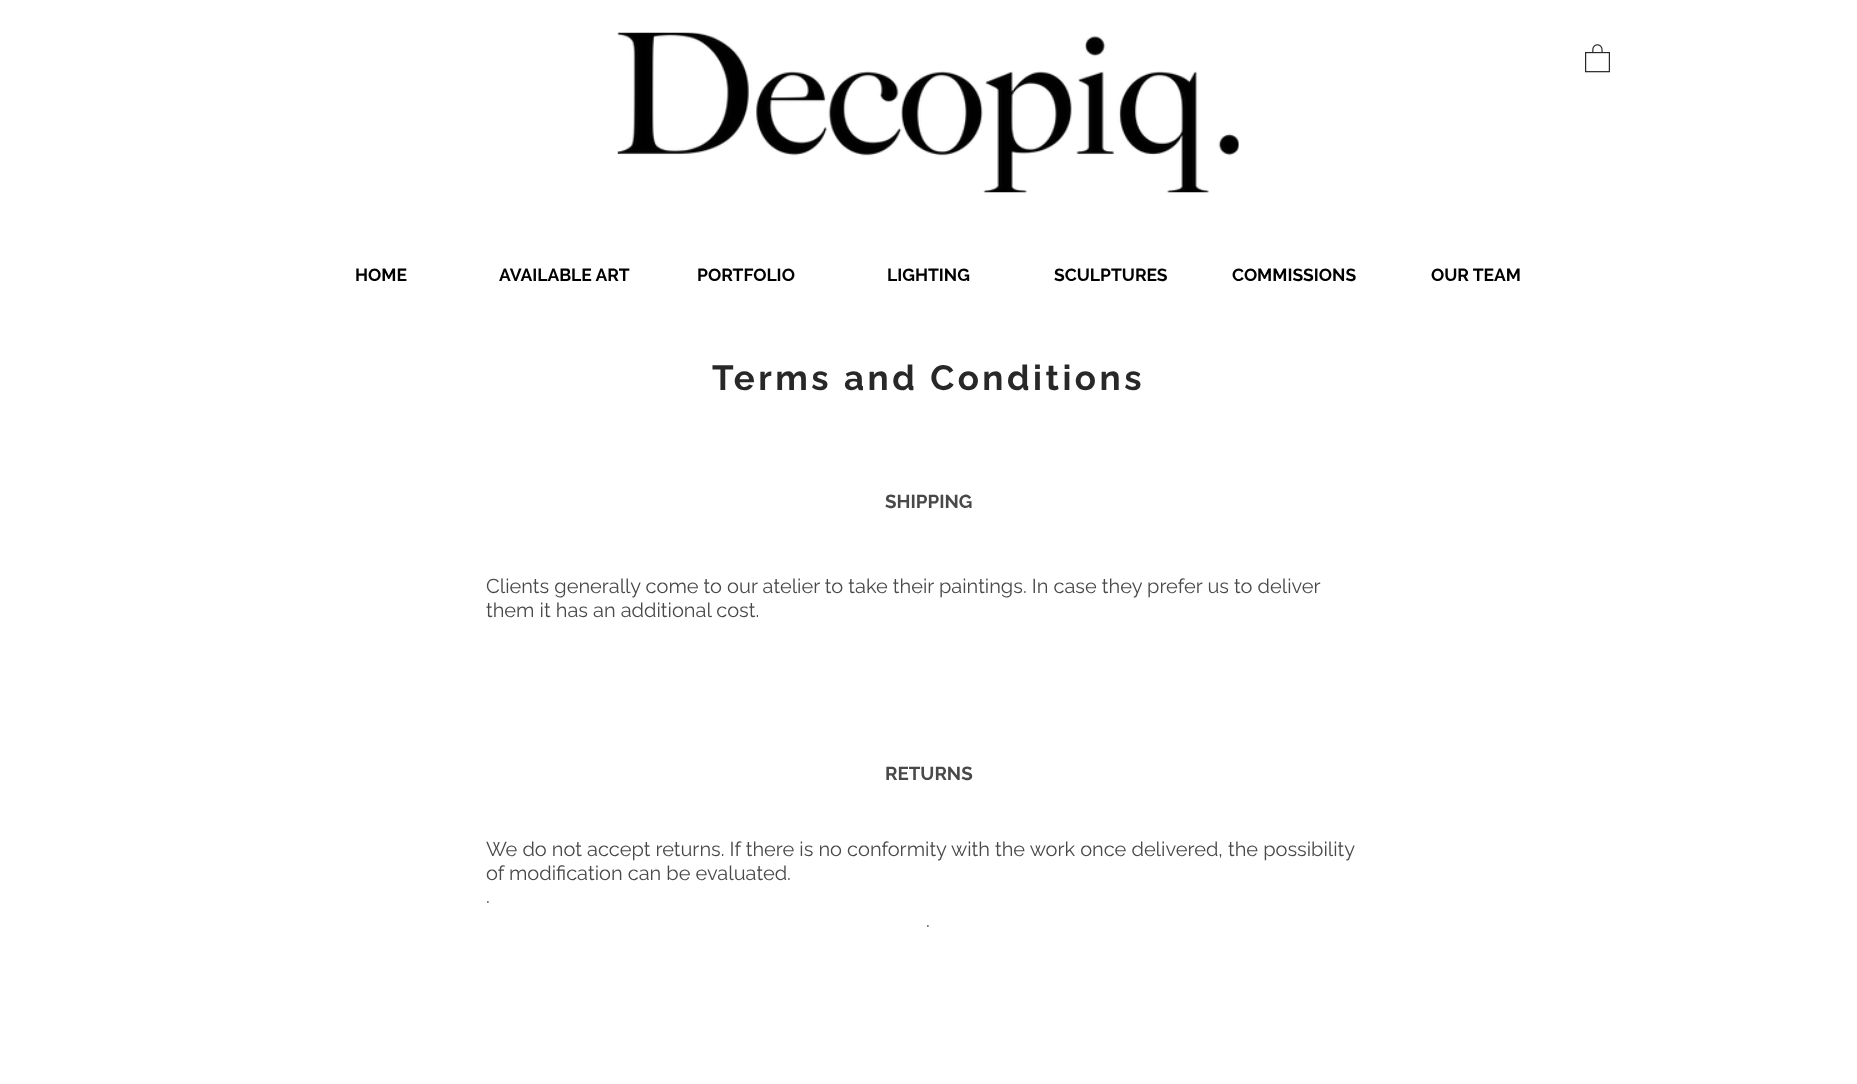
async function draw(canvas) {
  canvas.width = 1857
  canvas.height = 1084
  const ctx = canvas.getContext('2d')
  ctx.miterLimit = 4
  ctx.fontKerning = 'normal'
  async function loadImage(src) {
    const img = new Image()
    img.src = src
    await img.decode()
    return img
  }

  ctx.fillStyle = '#fff'
  ctx.fillRect(0, 0, 1857, 1084)
  ctx.drawImage(await loadImage('image0.png'), 617, 32, 622, 161)
  ctx.drawImage(await loadImage('image1.png'), 1585, 44, 25, 29)
  ctx.font = 'bold 17.5px Raleway'
  ctx.fillStyle = '#000'
  ctx.fillText('HOME', 355, 281)
  ctx.fillText('AVAILABLE ART', 499, 281)
  ctx.fillText('PORTFOLIO', 697, 281)
  ctx.fillText('LIGHTING', 887, 281)
  ctx.fillText('SCULPTURES', 1054, 281)
  ctx.fillText('COMMISSIONS', 1232, 281)
  ctx.fillText('OUR TEAM', 1431, 281)
  ctx.letterSpacing = '3.5px'
  ctx.font = 'bold 35px "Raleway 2"'
  ctx.fillStyle = '#282828'
  ctx.fillText('Terms and Conditions', 712, 390)
  ctx.letterSpacing = '0px'
  ctx.font = 'bold 18.75px "Raleway 2"'
  ctx.fillStyle = '#494949'
  ctx.fillText('SHIPPING', 885, 508)
  ctx.font = '20px Raleway'
  ctx.fillText('Clients generally come to our atelier to take their paintings. In case they prefer us to deliver', 486, 593)
  ctx.fillText('them it has an additional cost.', 486, 617)
  ctx.font = 'bold 18.75px "Raleway 2"'
  ctx.fillText('RETURNS', 885, 780)
  ctx.font = '20px Raleway'
  ctx.fillText('We do not accept returns. If there is no conformity with the work once delivered, the possibility', 486, 856)
  ctx.fillText('of modification can be evaluated.', 486, 880)
  ctx.fillText('.', 486, 903)
  ctx.fillText('.', 926, 927)
}

draw(document.querySelector('canvas'))
